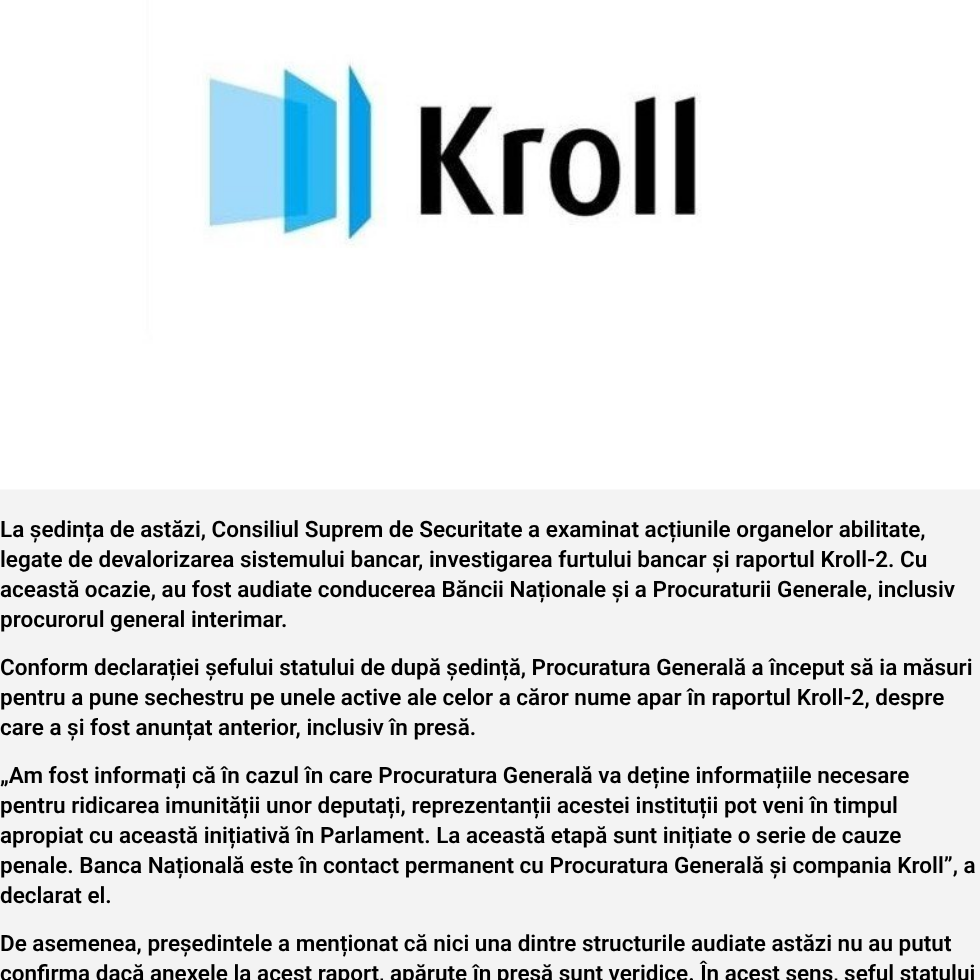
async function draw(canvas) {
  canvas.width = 980
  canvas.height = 980
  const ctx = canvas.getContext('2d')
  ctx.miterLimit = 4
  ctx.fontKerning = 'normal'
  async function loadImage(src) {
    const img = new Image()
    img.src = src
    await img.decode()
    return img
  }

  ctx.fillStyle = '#f3f3f3'
  ctx.fillRect(0, 0, 980, 980)
  ctx.drawImage(await loadImage('image0.png'), 0, 0, 980, 490)
  ctx.font = '600 22.5px Roboto'
  ctx.fillStyle = '#000'
  ctx.fillText('La ședința de astăzi, Consiliul Suprem de Securitate a examinat acțiunile organelor abilitate,', 0, 537)
  ctx.fillText('legate de devalorizarea sistemului bancar, investigarea furtului bancar și raportul Kroll-2. Cu', 0, 567)
  ctx.fillText('această ocazie, au fost audiate conducerea Băncii Naționale și a Procuraturii Generale, inclusiv', 0, 597)
  ctx.fillText('procurorul general interimar.', 0, 627)
  ctx.fillText('Conform declarației șefului statului de după ședință, Procuratura Generală a început să ia măsuri', 0, 675)
  ctx.fillText('pentru a pune sechestru pe unele active ale celor a căror nume apar în raportul Kroll-2, despre', 0, 705)
  ctx.fillText('care a și fost anunțat anterior, inclusiv în presă.', 0, 735)
  ctx.fillText('„Am fost informați că în cazul în care Procuratura Generală va deține informațiile necesare', 0, 783)
  ctx.fillText('pentru ridicarea imunității unor deputați, reprezentanții acestei instituții pot veni în timpul', 0, 813)
  ctx.fillText('apropiat cu această inițiativă în Parlament. La această etapă sunt inițiate o serie de cauze', 0, 843)
  ctx.fillText('penale. Banca Națională este în contact permanent cu Procuratura Generală și compania Kroll”, a', 0, 873)
  ctx.fillText('declarat el.', 0, 903)
  ctx.fillText('De asemenea, președintele a menționat că nici una dintre structurile audiate astăzi nu au putut', 0, 951)
  ctx.fillText('confirma dacă anexele la acest raport, apărute în presă sunt veridice. În acest sens, șeful statului', 0, 981)
}

draw(document.querySelector('canvas'))
